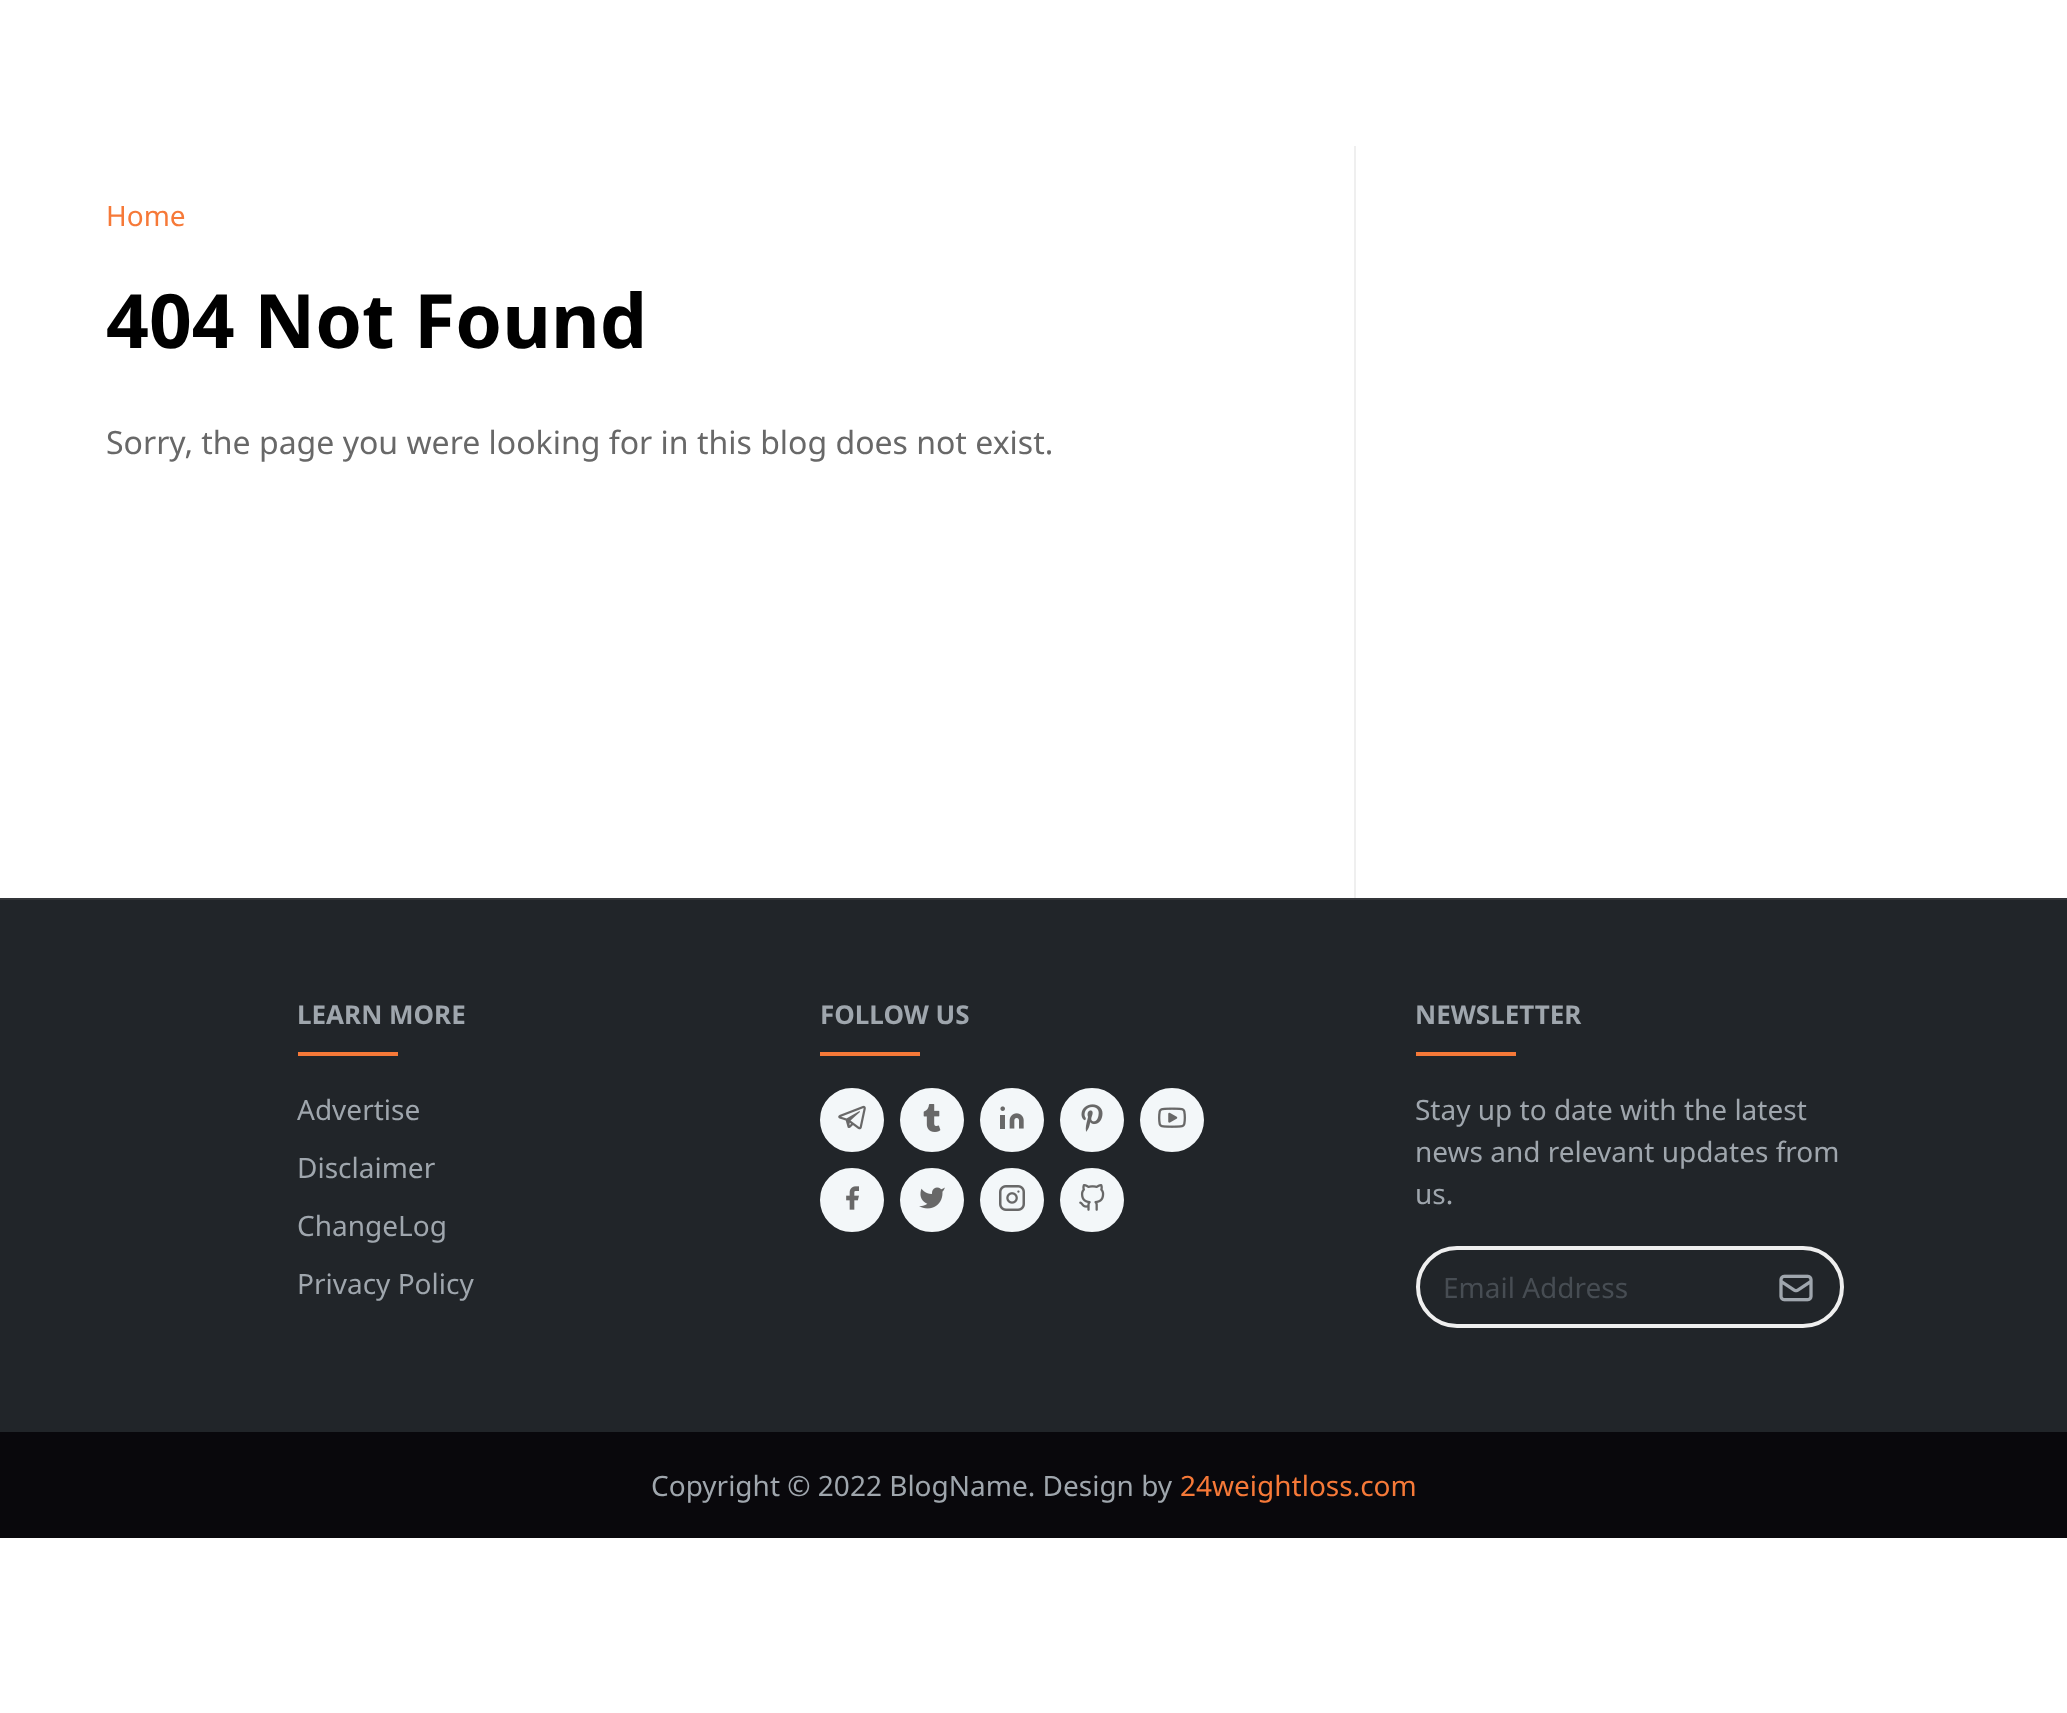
async function draw(canvas) {
  canvas.width = 2067
  canvas.height = 1713
  const ctx = canvas.getContext('2d')
  ctx.miterLimit = 4
  ctx.fontKerning = 'normal'
  async function loadImage(src) {
    const img = new Image()
    img.src = src
    await img.decode()
    return img
  }

  ctx.fillStyle = '#fff'
  ctx.fillRect(0, 0, 2067, 1713)
  ctx.font = '28px Noto Sans'
  ctx.fillStyle = '#f67938'
  ctx.fillText('Home', 106, 226)
  ctx.font = 'bold 75px Noto Sans'
  ctx.fillStyle = '#000'
  ctx.fillText('404 Not Found', 106, 348)
  ctx.font = '32px Noto Sans'
  ctx.fillStyle = '#686868'
  ctx.fillText('Sorry, the page you were looking for in this blog does not exist.', 106, 454)
  ctx.fillStyle = '#efefef'
  ctx.fillRect(1354, 146, 2, 752)
  ctx.fillStyle = '#212529'
  ctx.fillRect(0, 900, 2067, 532)
  ctx.fillStyle = '#323539'
  ctx.fillRect(0, 898, 2067, 2)
  ctx.font = 'bold 26px Noto Sans'
  ctx.fillStyle = '#9fa6ad'
  ctx.fillText('LEARN MORE', 297, 1024)
  ctx.fillStyle = '#f67938'
  ctx.fillRect(298, 1052, 100, 4)
  ctx.font = '28px Noto Sans'
  ctx.fillStyle = '#9fa6ad'
  ctx.fillText('Advertise', 297, 1120)
  ctx.fillText('Disclaimer', 297, 1178)
  ctx.fillText('ChangeLog', 297, 1236)
  ctx.fillText('Privacy Policy', 297, 1294)
  ctx.font = 'bold 26px Noto Sans'
  ctx.fillText('FOLLOW US', 820, 1024)
  ctx.fillStyle = '#f67938'
  ctx.fillRect(820, 1052, 100, 4)
  ctx.fillStyle = '#f3f7f9'
  ctx.beginPath()
  ctx.arc(852, 1120, 31, 0, 2 * Math.PI)
  ctx.fill()
  ctx.strokeStyle = '#f3f7f9'
  ctx.lineWidth = 2
  ctx.stroke()
  ctx.drawImage(await loadImage('image0.png'), 838, 1105, 28, 25)
  ctx.beginPath()
  ctx.arc(932, 1120, 31, 0, 2 * Math.PI)
  ctx.fill()
  ctx.stroke()
  ctx.drawImage(await loadImage('image1.png'), 923, 1104, 18, 28)
  ctx.beginPath()
  ctx.arc(1012, 1120, 31, 0, 2 * Math.PI)
  ctx.fill()
  ctx.stroke()
  ctx.drawImage(await loadImage('image2.png'), 1000, 1106, 24, 23)
  ctx.beginPath()
  ctx.arc(1092, 1120, 31, 0, 2 * Math.PI)
  ctx.fill()
  ctx.stroke()
  ctx.drawImage(await loadImage('image3.png'), 1081, 1104, 22, 28)
  ctx.beginPath()
  ctx.arc(1172, 1120, 31, 0, 2 * Math.PI)
  ctx.fill()
  ctx.stroke()
  ctx.drawImage(await loadImage('image4.png'), 1158, 1107, 28, 21)
  ctx.beginPath()
  ctx.arc(852, 1200, 31, 0, 2 * Math.PI)
  ctx.fill()
  ctx.stroke()
  ctx.drawImage(await loadImage('image5.png'), 846, 1186, 13, 24)
  ctx.beginPath()
  ctx.arc(932, 1200, 31, 0, 2 * Math.PI)
  ctx.fill()
  ctx.stroke()
  ctx.drawImage(await loadImage('image6.png'), 919, 1187, 26, 22)
  ctx.beginPath()
  ctx.arc(1012, 1200, 31, 0, 2 * Math.PI)
  ctx.fill()
  ctx.stroke()
  ctx.drawImage(await loadImage('image7.png'), 999, 1185, 26, 26)
  ctx.beginPath()
  ctx.arc(1092, 1200, 31, 0, 2 * Math.PI)
  ctx.fill()
  ctx.stroke()
  ctx.drawImage(await loadImage('image8.png'), 1079, 1184, 26, 27)
  ctx.fillStyle = '#9fa6ad'
  ctx.fillText('NEWSLETTER', 1415, 1024)
  ctx.fillStyle = '#f67938'
  ctx.fillRect(1416, 1052, 100, 4)
  ctx.font = '28px Noto Sans'
  ctx.fillStyle = '#9fa6ad'
  ctx.fillText('Stay up to date with the latest', 1415, 1120)
  ctx.fillText('news and relevant updates from', 1415, 1162)
  ctx.fillText('us.', 1415, 1204)
  ctx.beginPath()
  ctx.roundRect(1418, 1248, 424, 78, 39)
  ctx.strokeStyle = '#efefef'
  ctx.lineWidth = 4
  ctx.stroke()
  ctx.fillStyle = '#474d53'
  ctx.fillText('Email Address', 1443, 1298)
  ctx.drawImage(await loadImage('image9.png'), 1779, 1274, 34, 28)
  ctx.fillStyle = '#09080c'
  ctx.fillRect(0, 1432, 2067, 106)
  ctx.fillStyle = '#9fa6ad'
  ctx.fillText('Copyright © 2022 BlogName. Design by', 651, 1496)
  ctx.fillStyle = '#f67938'
  ctx.fillText('24weightloss.com', 1180, 1496)
}

draw(document.querySelector('canvas'))
